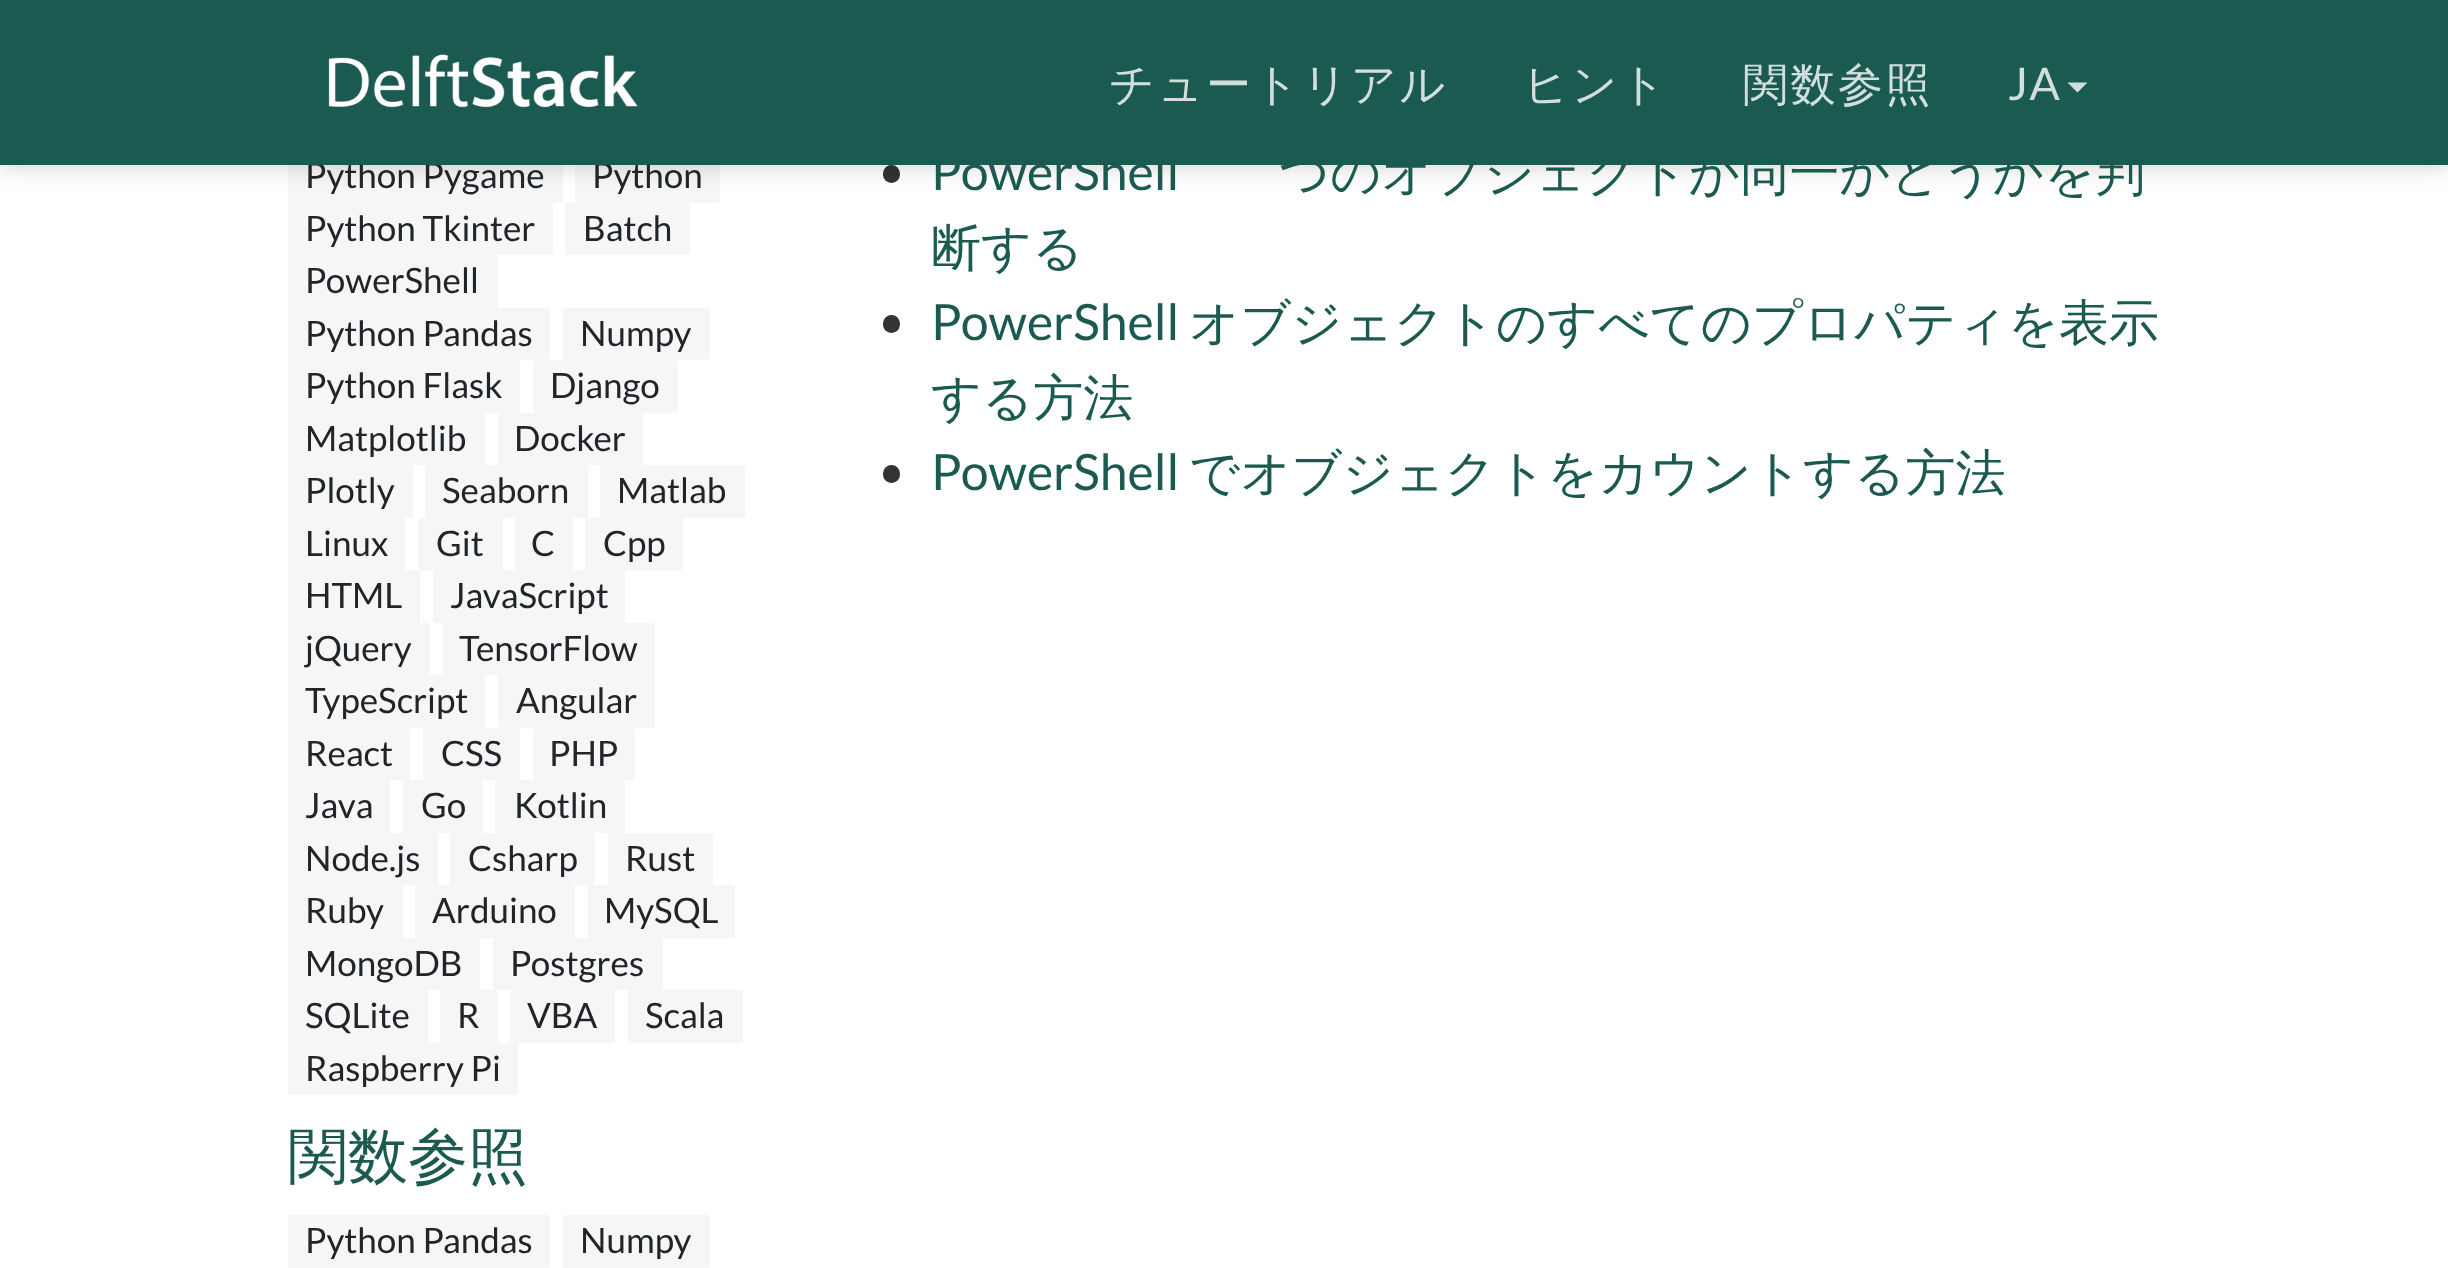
async function draw(canvas) {
  canvas.width = 2448
  canvas.height = 1268
  const ctx = canvas.getContext('2d')
  ctx.miterLimit = 4
  ctx.fontKerning = 'normal'
  async function loadImage(src) {
    const img = new Image()
    img.src = src
    await img.decode()
    return img
  }

  ctx.fillStyle = '#fff'
  ctx.fillRect(0, 0, 2448, 1268)
  ctx.fillStyle = '#f6f6f6'
  ctx.beginPath()
  ctx.roundRect(288, 150, 275, 53, 2.5)
  ctx.fill()
  ctx.beginPath()
  ctx.roundRect(575, 150, 145, 53, 2.5)
  ctx.fill()
  ctx.beginPath()
  ctx.roundRect(288, 203, 265, 52, 2.5)
  ctx.fill()
  ctx.beginPath()
  ctx.roundRect(565, 203, 125, 52, 2.5)
  ctx.fill()
  ctx.fillStyle = '#333'
  ctx.beginPath()
  ctx.roundRect(883, 165, 17, 18, 8.5)
  ctx.fill()
  ctx.fillStyle = '#00000033'
  ctx.filter = 'blur(12.5px)'
  ctx.beginPath()
  ctx.rect(0, 0, 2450, 165)
  ctx.fill()
  ctx.filter = 'none'
  ctx.font = '35px Lato'
  ctx.fillStyle = '#212529'
  ctx.fillText('Python Pygame', 305, 188)
  ctx.fillText('Python', 592, 188)
  ctx.fillStyle = '#1b5a50'
  ctx.fillRect(0, 0, 2448, 165)
  ctx.drawImage(await loadImage('image0.png'), 328, 54, 310, 54)
  ctx.letterSpacing = '2.5px'
  ctx.font = '500 45px WenQuanYi Zen Hei'
  ctx.fillStyle = '#d1dedc'
  ctx.fillText('チュートリアル', 1109, 100)
  ctx.fillText('ヒント', 1523, 100)
  ctx.fillText('関数参照', 1743, 100)
  ctx.font = '45px Lato'
  ctx.fillText('JA', 2008, 100)
  ctx.beginPath()
  ctx.moveTo(2067.5, 82.5)
  ctx.lineTo(2087.5, 82.5)
  ctx.lineTo(2077.5, 92.5)
  ctx.closePath()
  ctx.fill()
  ctx.letterSpacing = '0px'
  ctx.font = '35px Lato'
  ctx.fillStyle = '#212529'
  ctx.fillText('Python Tkinter', 305, 241)
  ctx.fillText('Batch', 583, 241)
  ctx.fillStyle = '#f6f6f6'
  ctx.beginPath()
  ctx.roundRect(288, 255, 210, 53, 2.5)
  ctx.fill()
  ctx.fillStyle = '#212529'
  ctx.fillText('PowerShell', 305, 293)
  ctx.fillStyle = '#f6f6f6'
  ctx.beginPath()
  ctx.roundRect(288, 308, 262, 52, 2.5)
  ctx.fill()
  ctx.fillStyle = '#212529'
  ctx.fillText('Python Pandas', 305, 346)
  ctx.fillStyle = '#f6f6f6'
  ctx.beginPath()
  ctx.roundRect(563, 308, 147, 52, 2.5)
  ctx.fill()
  ctx.fillStyle = '#212529'
  ctx.fillText('Numpy', 580, 346)
  ctx.fillStyle = '#f6f6f6'
  ctx.beginPath()
  ctx.roundRect(288, 360, 232, 53, 2.5)
  ctx.fill()
  ctx.fillStyle = '#212529'
  ctx.fillText('Python Flask', 305, 398)
  ctx.fillStyle = '#f6f6f6'
  ctx.beginPath()
  ctx.roundRect(533, 360, 145, 53, 2.5)
  ctx.fill()
  ctx.fillStyle = '#212529'
  ctx.fillText('Django', 550, 398)
  ctx.fillStyle = '#f6f6f6'
  ctx.beginPath()
  ctx.roundRect(288, 413, 197, 52, 2.5)
  ctx.fill()
  ctx.fillStyle = '#212529'
  ctx.fillText('Matplotlib', 305, 451)
  ctx.fillStyle = '#f6f6f6'
  ctx.beginPath()
  ctx.roundRect(498, 413, 145, 52, 2.5)
  ctx.fill()
  ctx.fillStyle = '#212529'
  ctx.fillText('Docker', 514, 451)
  ctx.fillStyle = '#f6f6f6'
  ctx.beginPath()
  ctx.roundRect(288, 465, 125, 53, 2.5)
  ctx.fill()
  ctx.fillStyle = '#212529'
  ctx.fillText('Plotly', 305, 503)
  ctx.fillStyle = '#f6f6f6'
  ctx.beginPath()
  ctx.roundRect(425, 465, 163, 53, 2.5)
  ctx.fill()
  ctx.fillStyle = '#212529'
  ctx.fillText('Seaborn', 442, 503)
  ctx.fillStyle = '#f6f6f6'
  ctx.beginPath()
  ctx.roundRect(600, 465, 145, 53, 2.5)
  ctx.fill()
  ctx.fillStyle = '#212529'
  ctx.fillText('Matlab', 617, 503)
  ctx.fillStyle = '#f6f6f6'
  ctx.beginPath()
  ctx.roundRect(288, 518, 117, 52, 2.5)
  ctx.fill()
  ctx.fillStyle = '#212529'
  ctx.fillText('Linux', 305, 556)
  ctx.fillStyle = '#f6f6f6'
  ctx.beginPath()
  ctx.roundRect(418, 518, 85, 52, 2.5)
  ctx.fill()
  ctx.fillStyle = '#212529'
  ctx.fillText('Git', 436, 556)
  ctx.fillStyle = '#f6f6f6'
  ctx.beginPath()
  ctx.roundRect(515, 518, 58, 52, 2.5)
  ctx.fill()
  ctx.fillStyle = '#212529'
  ctx.fillText('C', 531, 556)
  ctx.fillStyle = '#f6f6f6'
  ctx.beginPath()
  ctx.roundRect(585, 518, 98, 52, 2.5)
  ctx.fill()
  ctx.fillStyle = '#212529'
  ctx.fillText('Cpp', 603, 556)
  ctx.fillStyle = '#f6f6f6'
  ctx.beginPath()
  ctx.roundRect(288, 570, 132, 53, 2.5)
  ctx.fill()
  ctx.fillStyle = '#212529'
  ctx.fillText('HTML', 305, 608)
  ctx.fillStyle = '#f6f6f6'
  ctx.beginPath()
  ctx.roundRect(433, 570, 192, 53, 2.5)
  ctx.fill()
  ctx.fillStyle = '#212529'
  ctx.fillText('JavaScript', 450, 608)
  ctx.fillStyle = '#f6f6f6'
  ctx.beginPath()
  ctx.roundRect(288, 623, 142, 52, 2.5)
  ctx.fill()
  ctx.fillStyle = '#212529'
  ctx.fillText('jQuery', 305, 661)
  ctx.fillStyle = '#f6f6f6'
  ctx.beginPath()
  ctx.roundRect(443, 623, 212, 52, 2.5)
  ctx.fill()
  ctx.fillStyle = '#212529'
  ctx.fillText('TensorFlow', 459, 661)
  ctx.fillStyle = '#f6f6f6'
  ctx.beginPath()
  ctx.roundRect(288, 675, 197, 53, 2.5)
  ctx.fill()
  ctx.fillStyle = '#212529'
  ctx.fillText('TypeScript', 305, 713)
  ctx.fillStyle = '#f6f6f6'
  ctx.beginPath()
  ctx.roundRect(498, 675, 157, 53, 2.5)
  ctx.fill()
  ctx.fillStyle = '#212529'
  ctx.fillText('Angular', 516, 713)
  ctx.fillStyle = '#f6f6f6'
  ctx.beginPath()
  ctx.roundRect(288, 728, 122, 52, 2.5)
  ctx.fill()
  ctx.fillStyle = '#212529'
  ctx.fillText('React', 305, 766)
  ctx.fillStyle = '#f6f6f6'
  ctx.beginPath()
  ctx.roundRect(423, 728, 97, 52, 2.5)
  ctx.fill()
  ctx.fillStyle = '#212529'
  ctx.fillText('CSS', 441, 766)
  ctx.fillStyle = '#f6f6f6'
  ctx.beginPath()
  ctx.roundRect(533, 728, 102, 52, 2.5)
  ctx.fill()
  ctx.fillStyle = '#212529'
  ctx.fillText('PHP', 549, 766)
  ctx.fillStyle = '#f6f6f6'
  ctx.beginPath()
  ctx.roundRect(288, 780, 102, 53, 2.5)
  ctx.fill()
  ctx.fillStyle = '#212529'
  ctx.fillText('Java', 305, 818)
  ctx.fillStyle = '#f6f6f6'
  ctx.beginPath()
  ctx.roundRect(403, 780, 80, 53, 2.5)
  ctx.fill()
  ctx.fillStyle = '#212529'
  ctx.fillText('Go', 421, 818)
  ctx.fillStyle = '#f6f6f6'
  ctx.beginPath()
  ctx.roundRect(495, 780, 130, 53, 2.5)
  ctx.fill()
  ctx.fillStyle = '#212529'
  ctx.fillText('Kotlin', 514, 818)
  ctx.fillStyle = '#f6f6f6'
  ctx.beginPath()
  ctx.roundRect(288, 833, 150, 52, 2.5)
  ctx.fill()
  ctx.fillStyle = '#212529'
  ctx.fillText('Node.js', 305, 871)
  ctx.fillStyle = '#f6f6f6'
  ctx.beginPath()
  ctx.roundRect(450, 833, 145, 52, 2.5)
  ctx.fill()
  ctx.fillStyle = '#212529'
  ctx.fillText('Csharp', 468, 871)
  ctx.fillStyle = '#f6f6f6'
  ctx.beginPath()
  ctx.roundRect(608, 833, 105, 52, 2.5)
  ctx.fill()
  ctx.fillStyle = '#212529'
  ctx.fillText('Rust', 625, 871)
  ctx.fillStyle = '#f6f6f6'
  ctx.beginPath()
  ctx.roundRect(288, 885, 115, 53, 2.5)
  ctx.fill()
  ctx.fillStyle = '#212529'
  ctx.fillText('Ruby', 305, 923)
  ctx.fillStyle = '#f6f6f6'
  ctx.beginPath()
  ctx.roundRect(415, 885, 160, 53, 2.5)
  ctx.fill()
  ctx.fillStyle = '#212529'
  ctx.fillText('Arduino', 432, 923)
  ctx.fillStyle = '#f6f6f6'
  ctx.beginPath()
  ctx.roundRect(588, 885, 147, 53, 2.5)
  ctx.fill()
  ctx.fillStyle = '#212529'
  ctx.fillText('MySQL', 604, 923)
  ctx.fillStyle = '#f6f6f6'
  ctx.beginPath()
  ctx.roundRect(288, 938, 192, 52, 2.5)
  ctx.fill()
  ctx.fillStyle = '#212529'
  ctx.fillText('MongoDB', 305, 976)
  ctx.fillStyle = '#f6f6f6'
  ctx.beginPath()
  ctx.roundRect(493, 938, 170, 52, 2.5)
  ctx.fill()
  ctx.fillStyle = '#212529'
  ctx.fillText('Postgres', 510, 976)
  ctx.fillStyle = '#f6f6f6'
  ctx.beginPath()
  ctx.roundRect(288, 990, 140, 53, 2.5)
  ctx.fill()
  ctx.fillStyle = '#212529'
  ctx.fillText('SQLite', 305, 1028)
  ctx.fillStyle = '#f6f6f6'
  ctx.beginPath()
  ctx.roundRect(440, 990, 58, 53, 2.5)
  ctx.fill()
  ctx.fillStyle = '#212529'
  ctx.fillText('R', 457, 1028)
  ctx.fillStyle = '#f6f6f6'
  ctx.beginPath()
  ctx.roundRect(510, 990, 105, 53, 2.5)
  ctx.fill()
  ctx.fillStyle = '#212529'
  ctx.fillText('VBA', 527, 1028)
  ctx.fillStyle = '#f6f6f6'
  ctx.beginPath()
  ctx.roundRect(628, 990, 115, 53, 2.5)
  ctx.fill()
  ctx.fillStyle = '#212529'
  ctx.fillText('Scala', 645, 1028)
  ctx.fillStyle = '#f6f6f6'
  ctx.beginPath()
  ctx.roundRect(288, 1043, 230, 52, 2.5)
  ctx.fill()
  ctx.fillStyle = '#212529'
  ctx.fillText('Raspberry Pi', 305, 1081)
  ctx.font = '500 60px WenQuanYi Zen Hei'
  ctx.fillStyle = '#1b5a50'
  ctx.fillText('関数参照', 288, 1177)
  ctx.fillStyle = '#f6f6f6'
  ctx.beginPath()
  ctx.roundRect(288, 1215, 262, 53, 2.5)
  ctx.fill()
  ctx.font = '35px Lato'
  ctx.fillStyle = '#212529'
  ctx.fillText('Python Pandas', 305, 1253)
  ctx.fillStyle = '#f6f6f6'
  ctx.beginPath()
  ctx.roundRect(563, 1215, 147, 53, 2.5)
  ctx.fill()
  ctx.fillStyle = '#212529'
  ctx.fillText('Numpy', 580, 1253)
  ctx.font = '50px Lato'
  ctx.fillStyle = '#1b5a50'
  ctx.fillText('PowerShell', 931, 190)
  ctx.font = '500 50px WenQuanYi Zen Hei'
  ctx.fillText('つのオブジェクトが同一かどうかを判', 1279, 190)
  ctx.fillText('断する', 931, 265)
  ctx.fillStyle = '#333'
  ctx.beginPath()
  ctx.roundRect(883, 315, 17, 18, 8.5)
  ctx.fill()
  ctx.font = '50px Lato'
  ctx.fillStyle = '#1b5a50'
  ctx.fillText('PowerShell', 931, 340)
  ctx.font = '500 50px WenQuanYi Zen Hei'
  ctx.fillText('オブジェクトのすべてのプロパティを表示', 1189, 340)
  ctx.fillText('する方法', 931, 415)
  ctx.fillStyle = '#333'
  ctx.beginPath()
  ctx.roundRect(883, 465, 17, 18, 8.5)
  ctx.fill()
  ctx.font = '50px Lato'
  ctx.fillStyle = '#1b5a50'
  ctx.fillText('PowerShell', 931, 490)
  ctx.font = '500 50px WenQuanYi Zen Hei'
  ctx.fillText('でオブジェクトをカウントする方法', 1189, 490)
}

draw(document.querySelector('canvas'))
